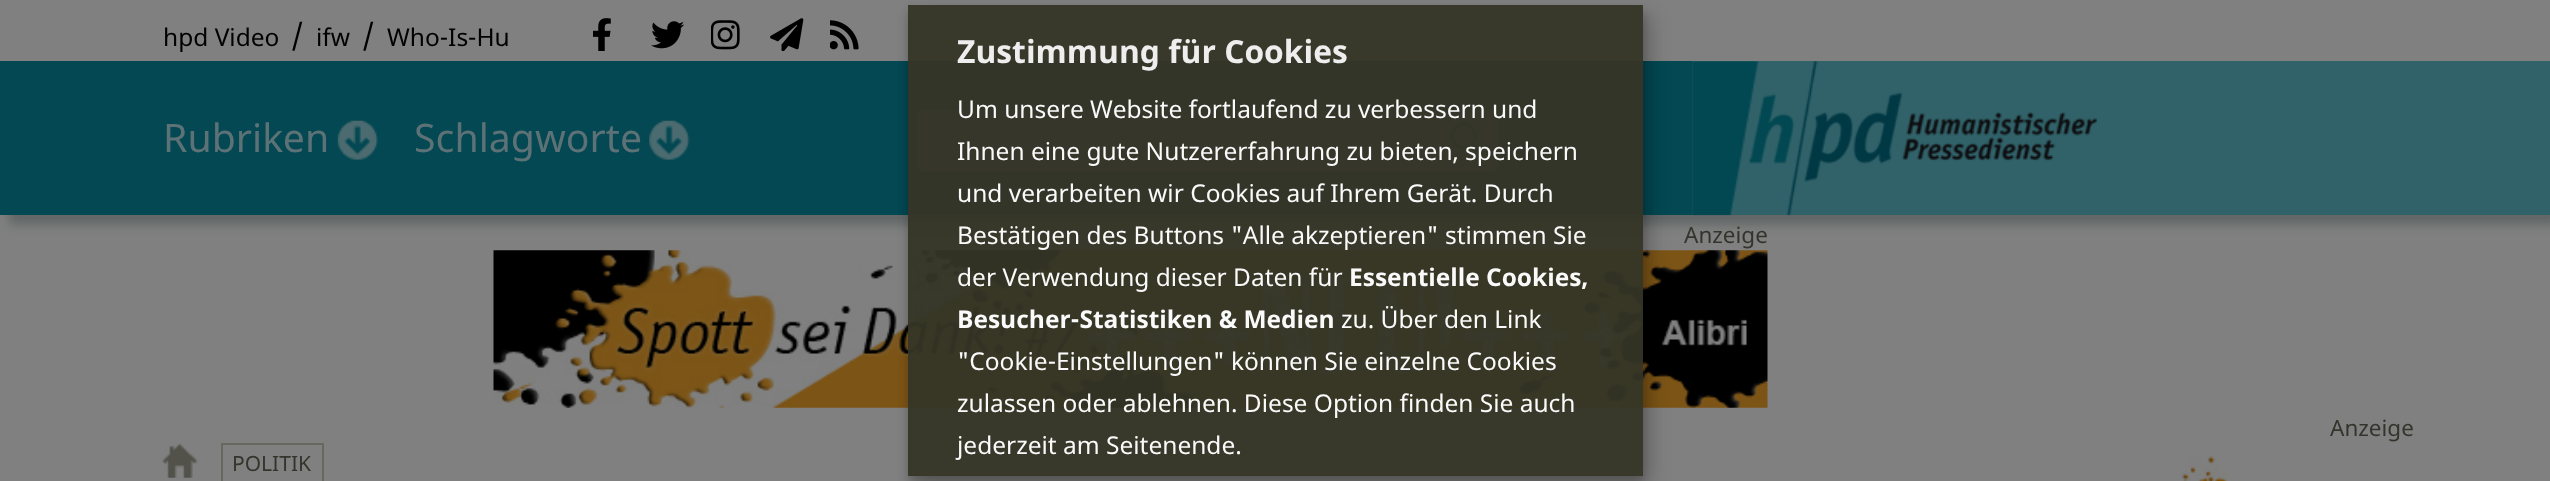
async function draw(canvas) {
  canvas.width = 2550
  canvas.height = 481
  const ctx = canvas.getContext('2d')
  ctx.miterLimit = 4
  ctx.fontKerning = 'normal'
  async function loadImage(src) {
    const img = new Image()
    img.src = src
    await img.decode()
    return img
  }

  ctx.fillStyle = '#808080'
  ctx.fillRect(0, 0, 2550, 481)
  ctx.fillStyle = '#01121542'
  ctx.filter = 'blur(6px)'
  ctx.beginPath()
  ctx.rect(9, 9, 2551, 215)
  ctx.fill()
  ctx.filter = 'none'
  ctx.fillStyle = '#808080'
  ctx.fillRect(0, 0, 2550, 61)
  ctx.font = '24.5px Noto Sans'
  ctx.fillStyle = '#000'
  ctx.fillText('hpd Video', 163, 46)
  ctx.font = '29px Noto Sans'
  ctx.fillText('/', 291, 46)
  ctx.font = '24.5px Noto Sans'
  ctx.fillText('ifw', 316, 46)
  ctx.font = '29px Noto Sans'
  ctx.fillText('/', 362, 46)
  ctx.font = '24.5px Noto Sans'
  ctx.fillText('Who-Is-Hu', 387, 46)
  ctx.drawImage(await loadImage('image0.png'), 593, 18, 18, 33)
  ctx.drawImage(await loadImage('image1.png'), 651, 21, 34, 28)
  ctx.drawImage(await loadImage('image2.png'), 711, 20, 29, 30)
  ctx.drawImage(await loadImage('image3.png'), 770, 18, 34, 33)
  ctx.drawImage(await loadImage('image4.png'), 830, 20, 29, 30)
  ctx.fillStyle = '#034852'
  ctx.fillRect(0, 61, 1692, 154)
  ctx.fillStyle = '#316269'
  ctx.fillRect(1692, 61, 858, 154)
  ctx.drawImage(await loadImage('image5.png'), 337, 120, 41, 40)
  ctx.font = '39.25px Noto Sans'
  ctx.fillStyle = '#5c7276'
  ctx.fillText('Rubriken', 163, 152)
  ctx.drawImage(await loadImage('image6.png'), 649, 120, 41, 40)
  ctx.fillText('Schlagworte', 414, 152)
  ctx.fillStyle = '#4b6b70'
  ctx.beginPath()
  ctx.roundRect(917, 110, 581, 62, 7)
  ctx.fill()
  ctx.drawImage(await loadImage('image7.png'), 1448, 120, 39, 40)
  ctx.drawImage(await loadImage('image8.png'), 1692, 61, 67, 155)
  ctx.drawImage(await loadImage('image9.png'), 1749, 61, 348, 155)
  ctx.drawImage(await loadImage('image10.png'), 493, 250, 1275, 158)
  ctx.save()
  ctx.beginPath()
  ctx.moveTo(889, 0)
  ctx.lineTo(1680, 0)
  ctx.lineTo(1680, 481)
  ctx.lineTo(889, 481)
  ctx.closePath()
  ctx.moveTo(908, 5)
  ctx.lineTo(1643, 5)
  ctx.lineTo(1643, 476)
  ctx.lineTo(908, 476)
  ctx.closePath()
  ctx.clip('evenodd')
  ctx.fillStyle = '#00000030'
  ctx.filter = 'blur(9px)'
  ctx.beginPath()
  ctx.rect(917, 14, 735, 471)
  ctx.fill()
  ctx.filter = 'none'
  ctx.restore()
  ctx.save()
  ctx.beginPath()
  ctx.moveTo(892, 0)
  ctx.lineTo(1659, 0)
  ctx.lineTo(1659, 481)
  ctx.lineTo(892, 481)
  ctx.closePath()
  ctx.moveTo(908, 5)
  ctx.lineTo(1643, 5)
  ctx.lineTo(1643, 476)
  ctx.lineTo(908, 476)
  ctx.closePath()
  ctx.clip('evenodd')
  ctx.fillStyle = '#00000033'
  ctx.filter = 'blur(5px)'
  ctx.beginPath()
  ctx.rect(908, 12, 735, 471)
  ctx.fill()
  ctx.filter = 'none'
  ctx.restore()
  ctx.fillStyle = '#353526f2'
  ctx.fillRect(908, 5, 735, 471)
  ctx.font = 'bold 31.8px Noto Sans'
  ctx.fillStyle = '#eee'
  ctx.fillText('Zustimmung für Cookies', 957, 63)
  ctx.font = '24.5px Noto Sans'
  ctx.fillStyle = '#fafafa'
  ctx.fillText('Um unsere Website fortlaufend zu verbessern und', 957, 118)
  ctx.fillText('Ihnen eine gute Nutzererfahrung zu bieten, speichern', 957, 160)
  ctx.fillText('und verarbeiten wir Cookies auf Ihrem Gerät. Durch', 957, 202)
  ctx.fillText('Bestätigen des Buttons "Alle akzeptieren" stimmen Sie', 957, 244)
  ctx.fillText('der Verwendung dieser Daten für', 957, 286)
  ctx.font = 'bold 24.5px Noto Sans'
  ctx.fillText('Essentielle Cookies,', 1349, 286)
  ctx.fillText('Besucher-Statistiken & Medien', 957, 328)
  ctx.font = '24.5px Noto Sans'
  ctx.fillText('zu. Über den Link', 1341, 328)
  ctx.fillText('"Cookie-Einstellungen" können Sie einzelne Cookies', 957, 370)
  ctx.fillText('zulassen oder ablehnen. Diese Option finden Sie auch', 957, 412)
  ctx.fillText('jederzeit am Seitenende.', 957, 454)
  ctx.font = '22.5px Noto Sans'
  ctx.fillStyle = '#34342d'
  ctx.fillText('Anzeige', 1684, 243)
  ctx.fillText('Anzeige', 2330, 436)
  ctx.drawImage(await loadImage('image11.png'), 2181, 456, 47, 25)
  ctx.drawImage(await loadImage('image12.png'), 162, 443, 36, 35)
  ctx.strokeStyle = '#676760'
  ctx.lineWidth = 2
  ctx.strokeRect(222, 444, 101, 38)
  ctx.font = '21px Noto Sans'
  ctx.fillText('POLITIK', 232, 471)
}

draw(document.querySelector('canvas'))
